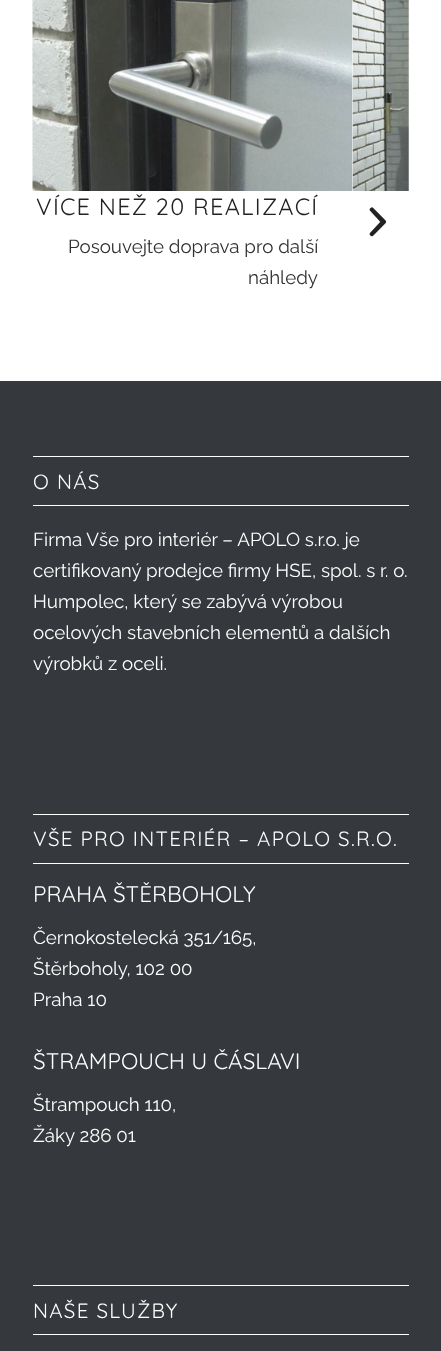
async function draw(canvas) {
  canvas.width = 441
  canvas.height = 1351
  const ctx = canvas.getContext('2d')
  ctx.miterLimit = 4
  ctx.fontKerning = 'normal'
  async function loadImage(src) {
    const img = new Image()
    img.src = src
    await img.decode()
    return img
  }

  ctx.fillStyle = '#fff'
  ctx.fillRect(0, 0, 441, 1351)
  ctx.drawImage(await loadImage('image1.png'), 352, 0, 57, 191)
  ctx.drawImage(await loadImage('image0.png'), 32, 0, 321, 191)
  ctx.letterSpacing = '1.25px'
  ctx.font = '300 23.5px Quicksand'
  ctx.fillStyle = '#222'
  ctx.fillText('VÍCE NEŽ 20 REALIZACÍ', 36, 215)
  ctx.letterSpacing = '0px'
  ctx.font = '100 18.75px Raleway'
  ctx.fillStyle = '#303030'
  ctx.fillText('Posouvejte doprava pro další', 68, 253)
  ctx.fillText('náhledy', 248, 284)
  ctx.drawImage(await loadImage('image2.png'), 369, 207, 18, 30)
  ctx.fillStyle = '#35383c'
  ctx.fillRect(0, 381, 441, 970)
  ctx.fillStyle = '#fff'
  ctx.fillRect(33, 456, 376, 1)
  ctx.fillRect(33, 505, 376, 1)
  ctx.letterSpacing = '1.25px'
  ctx.font = '300 20.6px Quicksand'
  ctx.fillText('O NÁS', 33, 489)
  ctx.letterSpacing = '0px'
  ctx.font = '100 18.75px Raleway'
  ctx.fillText('Firma Vše pro interiér – APOLO s.r.o. je', 33, 546)
  ctx.fillText('certifikovaný prodejce firmy HSE, spol. s r. o.', 33, 577)
  ctx.fillText('Humpolec, který se zabývá výrobou', 33, 608)
  ctx.fillText('ocelových stavebních elementů a dalších', 33, 639)
  ctx.fillText('výrobků z oceli.', 33, 670)
  ctx.fillRect(33, 814, 376, 1)
  ctx.fillRect(33, 863, 376, 1)
  ctx.letterSpacing = '1.25px'
  ctx.font = '300 20.6px Quicksand'
  ctx.fillText('VŠE PRO INTERIÉR – APOLO S.R.O.', 33, 846)
  ctx.letterSpacing = '0px'
  ctx.font = '300 22.5px Quicksand'
  ctx.fillText('PRAHA ŠTĚRBOHOLY', 33, 902)
  ctx.font = '100 18.75px Raleway'
  ctx.fillText('Černokostelecká 351/165,', 33, 944)
  ctx.fillText('Štěrboholy, 102 00', 33, 975)
  ctx.fillText('Praha 10', 33, 1006)
  ctx.font = '300 22.5px Quicksand'
  ctx.fillText('ŠTRAMPOUCH U ČÁSLAVI', 33, 1069)
  ctx.font = '100 18.75px Raleway'
  ctx.fillText('Štrampouch 110,', 33, 1111)
  ctx.fillText('Žáky 286 01', 33, 1142)
  ctx.fillRect(33, 1285, 376, 1)
  ctx.fillRect(33, 1334, 376, 1)
  ctx.letterSpacing = '1.25px'
  ctx.font = '300 20.6px Quicksand'
  ctx.fillText('NAŠE SLUŽBY', 33, 1318)
}

draw(document.querySelector('canvas'))
